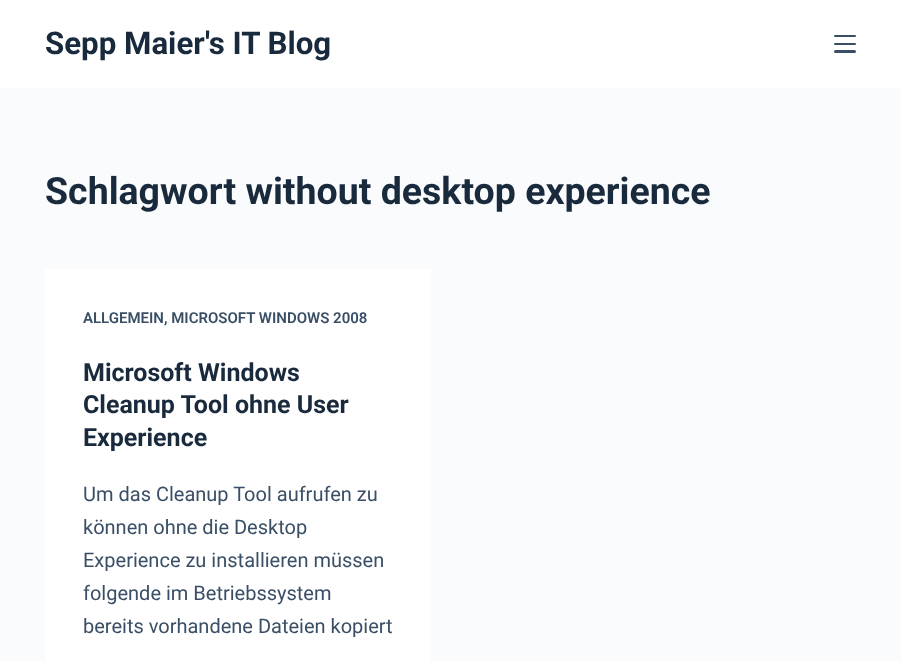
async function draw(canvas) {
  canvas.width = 901
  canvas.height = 661
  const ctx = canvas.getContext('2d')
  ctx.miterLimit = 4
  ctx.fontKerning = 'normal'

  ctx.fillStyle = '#fafbfc'
  ctx.fillRect(0, 0, 901, 661)
  ctx.fillStyle = '#fff'
  ctx.fillRect(0, 0, 901, 88)
  ctx.font = 'bold 31.25px Roboto'
  ctx.fillStyle = '#192a3d'
  ctx.fillText('Sepp Maier\'s IT Blog', 45, 54)
  ctx.fillStyle = '#3a4f66'
  ctx.beginPath()
  ctx.roundRect(834, 35, 22, 2, 1)
  ctx.fill()
  ctx.beginPath()
  ctx.roundRect(834, 43, 22, 2, 1)
  ctx.fill()
  ctx.beginPath()
  ctx.roundRect(834, 50, 22, 3, 1.5)
  ctx.fill()
  ctx.font = 'bold 37.5px Roboto'
  ctx.fillStyle = '#192a3d'
  ctx.fillText('Schlagwort without desktop experience', 45, 204)
  ctx.fillStyle = '#fff'
  ctx.fillRect(45, 269, 386, 392)
  ctx.font = '600 15px Roboto'
  ctx.fillStyle = '#3a4f66'
  ctx.fillText('ALLGEMEIN, MICROSOFT WINDOWS 2008', 83, 323)
  ctx.font = 'bold 25px Roboto'
  ctx.fillStyle = '#192a3d'
  ctx.fillText('Microsoft Windows', 83, 381)
  ctx.fillText('Cleanup Tool ohne User', 83, 413)
  ctx.fillText('Experience', 83, 446)
  ctx.font = '20px Roboto'
  ctx.fillStyle = '#3a4f66'
  ctx.fillText('Um das Cleanup Tool aufrufen zu', 83, 501)
  ctx.fillText('können ohne die Desktop', 83, 534)
  ctx.fillText('Experience zu installieren müssen', 83, 567)
  ctx.fillText('folgende im Betriebssystem', 83, 600)
  ctx.fillText('bereits vorhandene Dateien kopiert', 83, 633)
}

draw(document.querySelector('canvas'))
